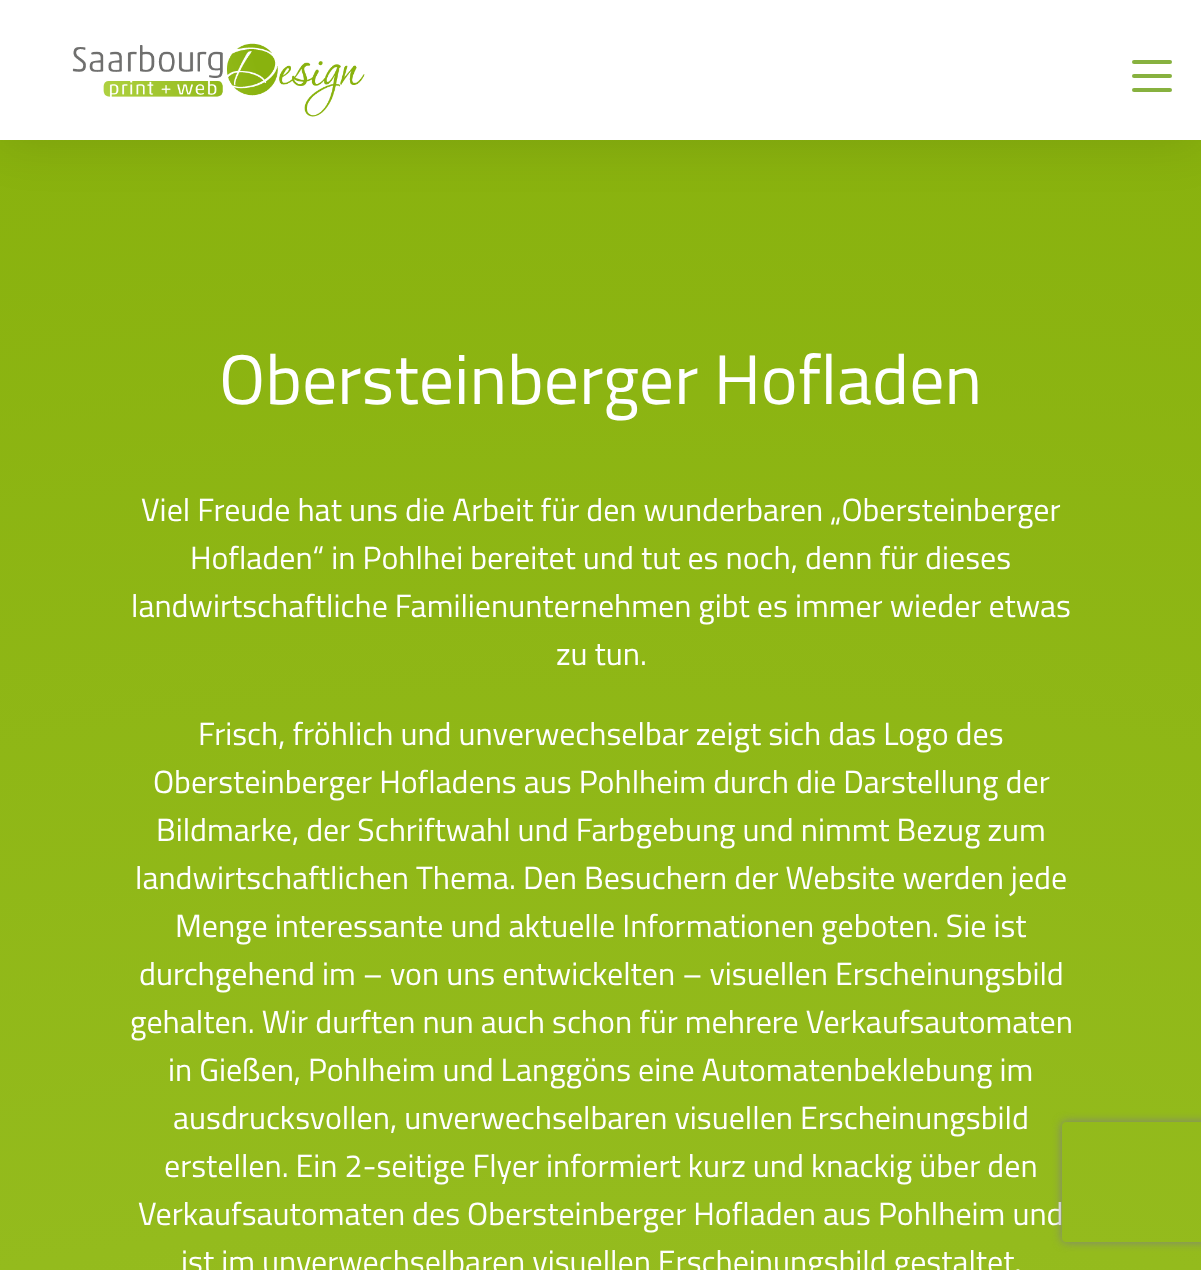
async function draw(canvas) {
  canvas.width = 1201
  canvas.height = 1270
  const ctx = canvas.getContext('2d')
  ctx.miterLimit = 4
  ctx.fontKerning = 'normal'
  async function loadImage(src) {
    const img = new Image()
    img.src = src
    await img.decode()
    return img
  }

  ctx.fillStyle = '#fff'
  ctx.fillRect(0, 0, 1201, 1270)
  ctx.drawImage(await loadImage('image1.png'), 0, 140, 1201, 1130)
  ctx.fillStyle = '#0000001a'
  ctx.filter = 'blur(25px)'
  ctx.beginPath()
  ctx.rect(0, 4, 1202, 140)
  ctx.fill()
  ctx.filter = 'none'
  ctx.fillStyle = '#fff'
  ctx.fillRect(0, 0, 1201, 140)
  ctx.drawImage(await loadImage('image0.png'), 72, 43, 293, 74)
  ctx.fillStyle = '#87b13f'
  ctx.beginPath()
  ctx.roundRect(1132, 74, 40, 4, 2)
  ctx.fill()
  ctx.beginPath()
  ctx.roundRect(1132, 60, 40, 4, 2)
  ctx.fill()
  ctx.beginPath()
  ctx.roundRect(1132, 88, 40, 4, 2)
  ctx.fill()
  ctx.font = '70px Titillium Web'
  ctx.fillStyle = '#fff'
  ctx.fillText('Obersteinberger Hofladen', 219, 404)
  ctx.font = '32px Titillium Web'
  ctx.fillText('Viel Freude hat uns die Arbeit für den wunderbaren „Obersteinberger', 141, 521)
  ctx.fillText('Hofladen“ in Pohlhei bereitet und tut es noch, denn für dieses', 190, 569)
  ctx.fillText('landwirtschaftliche Familienunternehmen gibt es immer wieder etwas', 131, 617)
  ctx.fillText('zu tun.', 556, 665)
  ctx.fillText('Frisch, fröhlich und unverwechselbar zeigt sich das Logo des', 198, 745)
  ctx.fillText('Obersteinberger Hofladens aus Pohlheim durch die Darstellung der', 153, 793)
  ctx.fillText('Bildmarke, der Schriftwahl und Farbgebung und nimmt Bezug zum', 156, 841)
  ctx.fillText('landwirtschaftlichen Thema. Den Besuchern der Website werden jede', 135, 889)
  ctx.fillText('Menge interessante und aktuelle Informationen geboten. Sie ist', 175, 937)
  ctx.fillText('durchgehend im – von uns entwickelten – visuellen Erscheinungsbild', 139, 985)
  ctx.fillText('gehalten. Wir durften nun auch schon für mehrere Verkaufsautomaten', 130, 1033)
  ctx.fillText('in Gießen, Pohlheim und Langgöns eine Automatenbeklebung im', 168, 1081)
  ctx.fillText('ausdrucksvollen, unverwechselbaren visuellen Erscheinungsbild', 173, 1129)
  ctx.fillText('erstellen. Ein 2-seitige Flyer informiert kurz und knackig über den', 164, 1177)
  ctx.fillText('Verkaufsautomaten des Obersteinberger Hofladen aus Pohlheim und', 138, 1225)
  ctx.fillText('ist im unverwechselbaren visuellen Erscheinungsbild gestaltet.', 181, 1273)
  ctx.save()
  ctx.beginPath()
  ctx.moveTo(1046, 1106)
  ctx.lineTo(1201, 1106)
  ctx.lineTo(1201, 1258)
  ctx.lineTo(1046, 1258)
  ctx.closePath()
  ctx.moveTo(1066, 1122)
  ctx.lineTo(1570, 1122)
  ctx.bezierCurveTo(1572, 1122, 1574, 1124, 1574, 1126)
  ctx.lineTo(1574, 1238)
  ctx.bezierCurveTo(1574, 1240, 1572, 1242, 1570, 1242)
  ctx.lineTo(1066, 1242)
  ctx.bezierCurveTo(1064, 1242, 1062, 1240, 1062, 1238)
  ctx.lineTo(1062, 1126)
  ctx.bezierCurveTo(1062, 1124, 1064, 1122, 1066, 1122)
  ctx.closePath()
  ctx.clip('evenodd')
  ctx.fillStyle = '#808080'
  ctx.filter = 'blur(5px)'
  ctx.beginPath()
  ctx.roundRect(1062, 1122, 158, 120, 4)
  ctx.fill()
  ctx.filter = 'none'
  ctx.restore()
}

draw(document.querySelector('canvas'))
